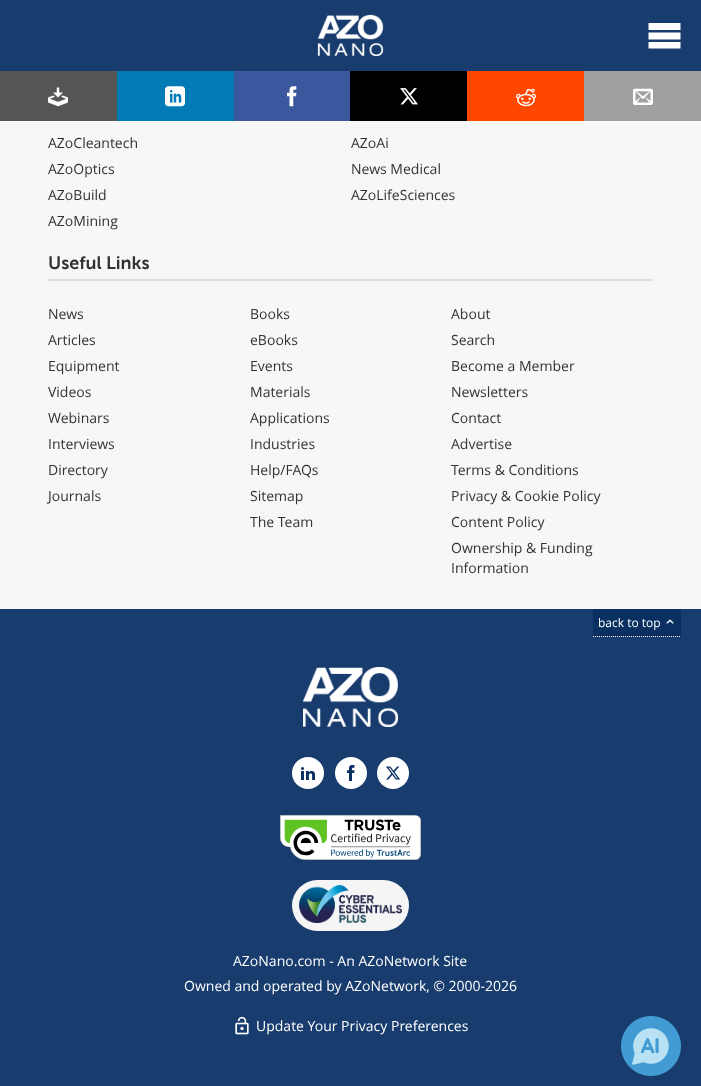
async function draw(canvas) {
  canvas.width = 701
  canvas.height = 1086
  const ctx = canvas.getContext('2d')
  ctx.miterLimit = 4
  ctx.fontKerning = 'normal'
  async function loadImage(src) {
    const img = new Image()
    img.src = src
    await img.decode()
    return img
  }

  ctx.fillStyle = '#f7f7f7'
  ctx.fillRect(0, 0, 701, 1086)
  ctx.fillStyle = '#183c6d'
  ctx.fillRect(0, 0, 701, 71)
  ctx.drawImage(await loadImage('image0.png'), 317, 14, 67, 43)
  ctx.fillStyle = '#fff'
  ctx.beginPath()
  ctx.moveTo(648.5, 23)
  ctx.lineTo(680.5, 23)
  ctx.lineTo(680.5, 30)
  ctx.lineTo(648.5, 30)
  ctx.closePath()
  ctx.moveTo(648.5, 32.5)
  ctx.lineTo(680.5, 32.5)
  ctx.lineTo(680.5, 39.5)
  ctx.lineTo(648.5, 39.5)
  ctx.closePath()
  ctx.moveTo(648.5, 42)
  ctx.lineTo(680.5, 42)
  ctx.lineTo(680.5, 48.5)
  ctx.lineTo(648.5, 48.5)
  ctx.closePath()
  ctx.fill()
  ctx.fillStyle = '#555'
  ctx.fillRect(0, 71, 117, 50)
  ctx.drawImage(await loadImage('image1.png'), 48, 87, 20, 20)
  ctx.fillStyle = '#007bb6'
  ctx.fillRect(117, 71, 117, 50)
  ctx.drawImage(await loadImage('image2.png'), 165, 86, 20, 21)
  ctx.fillStyle = '#3b579d'
  ctx.fillRect(234, 71, 116, 50)
  ctx.drawImage(await loadImage('image3.png'), 287, 86, 10, 21)
  ctx.fillStyle = '#000'
  ctx.fillRect(350, 71, 117, 50)
  ctx.drawImage(await loadImage('image4.png'), 400, 88, 18, 17)
  ctx.fillStyle = '#ff4700'
  ctx.fillRect(467, 71, 117, 50)
  ctx.drawImage(await loadImage('image5.png'), 516, 88, 20, 19)
  ctx.fillStyle = '#a0a0a0'
  ctx.fillRect(584, 71, 117, 50)
  ctx.drawImage(await loadImage('image6.png'), 633, 88, 20, 17)
  ctx.fillStyle = '#183c6d'
  ctx.fillRect(0, 609, 701, 477)
  ctx.drawImage(await loadImage('image7.png'), 621, 1016, 60, 60)
  ctx.font = '14px Open Sans'
  ctx.fillStyle = '#333'
  ctx.fillText('AZoCleantech', 48, 148)
  ctx.fillText('AZoOptics', 48, 174)
  ctx.fillText('AZoBuild', 48, 200)
  ctx.fillText('AZoMining', 48, 226)
  ctx.fillText('AZoAi', 351, 148)
  ctx.fillText('News Medical', 351, 174)
  ctx.fillText('AZoLifeSciences', 351, 200)
  ctx.fillStyle = '#ddd'
  ctx.fillRect(48, 279, 605, 2)
  ctx.font = '600 18px "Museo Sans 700"'
  ctx.fillStyle = '#333'
  ctx.fillText('Useful Links', 48, 269)
  ctx.font = '14px Open Sans'
  ctx.fillText('News', 48, 319)
  ctx.fillText('Articles', 48, 345)
  ctx.fillText('Equipment', 48, 371)
  ctx.fillText('Videos', 48, 397)
  ctx.fillText('Webinars', 48, 423)
  ctx.fillText('Interviews', 48, 449)
  ctx.fillText('Directory', 48, 475)
  ctx.fillText('Journals', 48, 501)
  ctx.fillText('Books', 250, 319)
  ctx.fillText('eBooks', 250, 345)
  ctx.fillText('Events', 250, 371)
  ctx.fillText('Materials', 250, 397)
  ctx.fillText('Applications', 250, 423)
  ctx.fillText('Industries', 250, 449)
  ctx.fillText('Help/FAQs', 250, 475)
  ctx.fillText('Sitemap', 250, 501)
  ctx.fillText('The Team', 250, 527)
  ctx.fillText('About', 451, 319)
  ctx.fillText('Search', 451, 345)
  ctx.fillText('Become a Member', 451, 371)
  ctx.fillText('Newsletters', 451, 397)
  ctx.fillText('Contact', 451, 423)
  ctx.fillText('Advertise', 451, 449)
  ctx.fillText('Terms & Conditions', 451, 475)
  ctx.fillText('Privacy & Cookie Policy', 451, 501)
  ctx.fillText('Content Policy', 451, 527)
  ctx.fillText('Ownership & Funding', 451, 553)
  ctx.fillText('Information', 451, 573)
  ctx.fillStyle = '#093061'
  ctx.fillRect(593, 609, 88, 28)
  ctx.beginPath()
  ctx.moveTo(593, 636.5)
  ctx.lineTo(681, 636.5)
  ctx.strokeStyle = '#fff'
  ctx.setLineDash([1, 1])
  ctx.stroke()
  ctx.font = '12px Open Sans'
  ctx.fillStyle = '#fff'
  ctx.fillText('back to top', 598, 627)
  ctx.drawImage(await loadImage('image8.png'), 666, 619, 8, 5)
  ctx.drawImage(await loadImage('image9.png'), 303, 667, 95, 60)
  ctx.beginPath()
  ctx.arc(308, 773, 16, 0, 2 * Math.PI)
  ctx.fill()
  ctx.drawImage(await loadImage('image10.png'), 301, 767, 14, 13)
  ctx.beginPath()
  ctx.arc(351, 773, 16, 0, 2 * Math.PI)
  ctx.fill()
  ctx.drawImage(await loadImage('image11.png'), 347, 765, 8, 16)
  ctx.beginPath()
  ctx.arc(393, 773, 16, 0, 2 * Math.PI)
  ctx.fill()
  ctx.drawImage(await loadImage('image12.png'), 386, 766, 15, 14)
  ctx.drawImage(await loadImage('image13.png'), 280, 815, 141, 45)
  ctx.fillStyle = '#f5f5f5'
  ctx.beginPath()
  ctx.roundRect(292, 880, 117, 51, 25.5)
  ctx.fill()
  ctx.drawImage(await loadImage('image14.png'), 299, 885, 103, 38)
  ctx.font = '14px Open Sans'
  ctx.fillStyle = '#fff'
  ctx.fillText('AZoNano.com - An AZoNetwork Site', 233, 966)
  ctx.fillText('Owned and operated by AZoNetwork, © 2000-2026', 184, 991)
  ctx.drawImage(await loadImage('image15.png'), 235, 1016, 14, 19)
  ctx.fillText('Update Your Privacy Preferences', 256, 1031)
}

draw(document.querySelector('canvas'))
